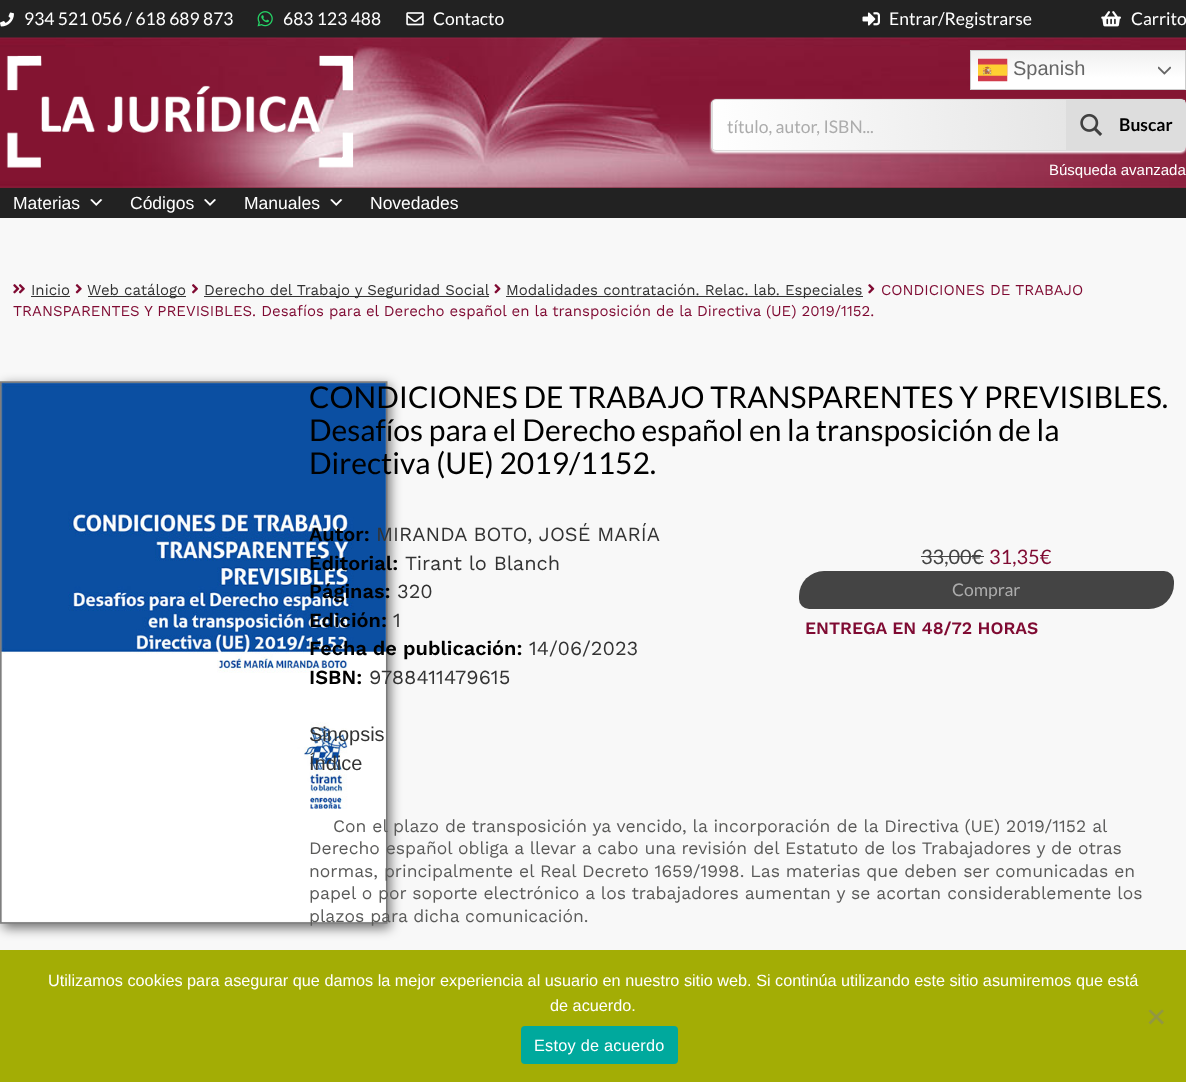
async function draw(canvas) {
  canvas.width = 1186
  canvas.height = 1082
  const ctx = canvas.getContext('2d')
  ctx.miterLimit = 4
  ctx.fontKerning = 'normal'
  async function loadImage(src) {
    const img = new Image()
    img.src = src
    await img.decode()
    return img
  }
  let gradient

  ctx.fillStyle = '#f8f8f8'
  ctx.fillRect(0, 0, 1186, 1082)
  ctx.fillStyle = '#772032'
  ctx.fillRect(0, 187, 1186, 1)
  ctx.fillStyle = '#222'
  ctx.fillRect(0, 0, 1186, 38)
  ctx.drawImage(await loadImage('image0.png'), 0, 12, 14, 15)
  ctx.font = '17.5px Lato'
  ctx.fillStyle = '#fff'
  ctx.fillText('934 521 056 / 618 689 873', 24, 25)
  ctx.drawImage(await loadImage('image1.png'), 257, 11, 16, 16)
  ctx.fillText('683 123 488', 283, 25)
  ctx.drawImage(await loadImage('image2.png'), 406, 12, 18, 14)
  ctx.fillText('Contacto', 433, 25)
  ctx.drawImage(await loadImage('image3.png'), 862, 12, 18, 14)
  ctx.fillText('Entrar/Registrarse', 889, 25)
  ctx.drawImage(await loadImage('image4.png'), 1101, 11, 20, 16)
  ctx.fillText('Carrito', 1131, 25)
  ctx.drawImage(await loadImage('image5.png'), 0, 37, 1186, 151)
  ctx.drawImage(await loadImage('image6.png'), 6, 55, 348, 113)
  gradient = ctx.createLinearGradient(1078, 50, 1078, 90)
  gradient.addColorStop(0, '#efefef')
  gradient.addColorStop(0.7, '#fff')
  ctx.fillStyle = gradient
  ctx.fillRect(971, 51, 214, 38)
  ctx.strokeStyle = '#ccc'
  ctx.strokeRect(970.5, 50.5, 215, 39)
  ctx.drawImage(await loadImage('image7.png'), 978, 58, 30, 24)
  ctx.font = '20px Liberation Sans'
  ctx.fillStyle = '#666'
  ctx.fillText('Spanish', 1013, 75)
  ctx.drawImage(await loadImage('image8.png'), 1158, 66, 13, 9)
  ctx.fillStyle = '#fff'
  ctx.filter = 'blur(1px)'
  ctx.beginPath()
  ctx.roundRect(711, 100, 475, 53, 5)
  ctx.fill()
  ctx.filter = 'none'
  ctx.save()
  ctx.beginPath()
  ctx.roundRect(711, 99, 475, 52, 5)
  ctx.clip()
  ctx.beginPath()
  ctx.roundRect(711, 99, 475, 52, 5)
  ctx.clip()
  gradient = ctx.createLinearGradient(240, 146, 713, 104)
  gradient.addColorStop(0, '#fff')
  gradient.addColorStop(1, '#ddd')
  ctx.fillStyle = gradient
  ctx.fillRect(711, 100, 2, 50)
  ctx.restore()
  gradient = ctx.createLinearGradient(712, 146, 1185, 104)
  gradient.addColorStop(0, '#fff')
  gradient.addColorStop(1, '#ddd')
  ctx.fillStyle = gradient
  ctx.fillRect(713, 100, 472, 50)
  ctx.beginPath()
  ctx.roundRect(711.5, 99.5, 474, 51, 4.5)
  ctx.strokeStyle = '#ddd'
  ctx.stroke()
  ctx.font = '17.5px Lato'
  ctx.fillStyle = '#acacac'
  ctx.fillText('título, autor, ISBN...', 727, 133)
  ctx.fillStyle = '#ddd'
  ctx.beginPath()
  ctx.roundRect(1066, 100, 119, 50, [0, 4, 4, 0])
  ctx.fill()
  ctx.drawImage(await loadImage('image9.png'), 1080, 113, 23, 23)
  ctx.font = 'bold 17.5px Lato'
  ctx.fillStyle = '#000'
  ctx.fillText('Buscar', 1119, 131)
  ctx.font = '15px Liberation Sans'
  ctx.fillStyle = '#fff'
  ctx.fillText('Búsqueda avanzada', 1049, 175)
  ctx.fillStyle = '#222'
  ctx.fillRect(0, 188, 1186, 30)
  ctx.font = '17.5px Liberation Sans'
  ctx.fillStyle = '#fff'
  ctx.fillText('Materias', 13, 209)
  ctx.drawImage(await loadImage('image10.png'), 90, 199, 13, 7)
  ctx.fillText('Códigos', 130, 209)
  ctx.drawImage(await loadImage('image11.png'), 204, 199, 12, 7)
  ctx.fillText('Manuales', 244, 209)
  ctx.drawImage(await loadImage('image10.png'), 330, 199, 13, 7)
  ctx.fillText('Novedades', 370, 209)
  ctx.drawImage(await loadImage('image12.png'), 13, 284, 12, 10)
  ctx.font = '15px Work Sans'
  ctx.fillStyle = '#333'
  ctx.fillText('Inicio', 31, 295)
  ctx.fillRect(31, 296, 39, 1)
  ctx.drawImage(await loadImage('image13.png'), 75, 284, 7, 10)
  ctx.fillRect(88, 296, 98, 1)
  ctx.fillText('Web catálogo', 87, 295)
  ctx.drawImage(await loadImage('image14.png'), 192, 284, 6, 10)
  ctx.fillRect(204, 296, 285, 1)
  ctx.fillText('Derecho del Trabajo y Seguridad Social', 204, 295)
  ctx.drawImage(await loadImage('image15.png'), 494, 284, 7, 10)
  ctx.fillRect(506, 296, 357, 1)
  ctx.fillText('Modalidades contratación. Relac. lab. Especiales', 506, 295)
  ctx.drawImage(await loadImage('image16.png'), 868, 284, 7, 10)
  ctx.fillStyle = '#7f0a32'
  ctx.fillText('CONDICIONES DE TRABAJO', 881, 295)
  ctx.fillText('TRANSPARENTES Y PREVISIBLES. Desafíos para el Derecho español en la transposición de la Directiva (UE) 2019/1152.', 13, 316)
  ctx.fillStyle = '#0000008c'
  ctx.filter = 'blur(6px)'
  ctx.beginPath()
  ctx.rect(3, 385, 387, 543)
  ctx.fill()
  ctx.filter = 'none'
  ctx.drawImage(await loadImage('image17.png'), 0, 381, 388, 543)
  ctx.font = '30px Lato'
  ctx.fillStyle = '#000'
  ctx.fillText('CONDICIONES DE TRABAJO TRANSPARENTES Y PREVISIBLES.', 309, 408)
  ctx.fillText('Desafíos para el Derecho español en la transposición de la', 309, 441)
  ctx.fillText('Directiva (UE) 2019/1152.', 309, 474)
  ctx.font = '600 20px Work Sans'
  ctx.fillText('Autor:', 309, 541)
  ctx.font = '20px Work Sans'
  ctx.fillStyle = '#333'
  ctx.fillText('MIRANDA BOTO, JOSÉ MARÍA', 376, 541)
  ctx.font = '600 20px Work Sans'
  ctx.fillStyle = '#000'
  ctx.fillText('Editorial:', 309, 570)
  ctx.font = '20px Work Sans'
  ctx.fillStyle = '#333'
  ctx.fillText('Tirant lo Blanch', 405, 570)
  ctx.font = '600 20px Work Sans'
  ctx.fillStyle = '#000'
  ctx.fillText('Páginas:', 309, 598)
  ctx.font = '20px Work Sans'
  ctx.fillStyle = '#333'
  ctx.fillText('320', 397, 598)
  ctx.font = '600 20px Work Sans'
  ctx.fillStyle = '#000'
  ctx.fillText('Edición:', 309, 627)
  ctx.font = '20px Work Sans'
  ctx.fillStyle = '#333'
  ctx.fillText('1', 393, 627)
  ctx.font = '600 20px Work Sans'
  ctx.fillStyle = '#000'
  ctx.fillText('Fecha de publicación:', 309, 655)
  ctx.font = '20px Work Sans'
  ctx.fillStyle = '#333'
  ctx.fillText('14/06/2023', 529, 655)
  ctx.font = '600 20px Work Sans'
  ctx.fillStyle = '#000'
  ctx.fillText('ISBN:', 309, 684)
  ctx.font = '20px Work Sans'
  ctx.fillStyle = '#333'
  ctx.fillText('9788411479615', 369, 684)
  ctx.font = '20px Lato'
  ctx.fillStyle = '#444'
  ctx.fillText('33,00€', 921, 564)
  ctx.fillRect(921, 556, 63, 1)
  ctx.fillStyle = '#7f0a32'
  ctx.fillText('31,35€', 989, 564)
  ctx.fillStyle = '#444'
  ctx.beginPath()
  ctx.roundRect(799, 571, 375, 38, [25, 10, 25, 10])
  ctx.fill()
  ctx.font = '17.5px Lato'
  ctx.fillStyle = '#acacac'
  ctx.fillText('Comprar', 952, 596)
  ctx.font = '600 17.5px Work Sans'
  ctx.fillStyle = '#7f0a32'
  ctx.fillText('ENTREGA EN 48/72 HORAS', 805, 634)
  ctx.font = '20px Liberation Sans'
  ctx.fillStyle = '#333'
  ctx.fillText('Sinopsis', 309, 741)
  ctx.fillText('Índice', 309, 770)
  ctx.font = '17.5px Work Sans'
  ctx.fillStyle = '#5a5a59'
  ctx.fillText('Con el plazo de transposición ya vencido, la incorporación de la Directiva (UE) 2019/1152 al', 333, 832)
  ctx.fillText('Derecho español obliga a llevar a cabo una revisión del Estatuto de los Trabajadores y de otras', 309, 854)
  ctx.fillText('normas, principalmente el Real Decreto 1659/1998. Las materias que deben ser comunicadas en', 309, 877)
  ctx.fillText('papel o por soporte electrónico a los trabajadores aumentan y se acortan considerablemente los', 309, 899)
  ctx.fillText('plazos para dicha comunicación.', 309, 922)
  ctx.fillStyle = '#a3ad05'
  ctx.fillRect(0, 950, 1186, 132)
  ctx.font = '16.25px Liberation Sans'
  ctx.fillStyle = '#fff'
  ctx.fillText('Utilizamos cookies para asegurar que damos la mejor experiencia al usuario en nuestro sitio web. Si continúa utilizando este sitio asumiremos que está', 48, 986)
  ctx.fillText('de acuerdo.', 550, 1011)
  ctx.fillStyle = '#929743'
  ctx.beginPath()
  ctx.moveTo(1162, 1009.5)
  ctx.lineTo(1164, 1011)
  ctx.lineTo(1150.5, 1024.5)
  ctx.lineTo(1148.5, 1022.5)
  ctx.closePath()
  ctx.fill()
  ctx.beginPath()
  ctx.moveTo(1148.5, 1011)
  ctx.lineTo(1150.5, 1009.5)
  ctx.lineTo(1164, 1022.5)
  ctx.lineTo(1162, 1024.5)
  ctx.closePath()
  ctx.fill()
  ctx.fillStyle = '#00a99d'
  ctx.beginPath()
  ctx.roundRect(521, 1026, 157, 38, 4)
  ctx.fill()
  ctx.letterSpacing = '0.25px'
  ctx.fillStyle = '#fff'
  ctx.fillText('Estoy de acuerdo', 534, 1051)
}

draw(document.querySelector('canvas'))
